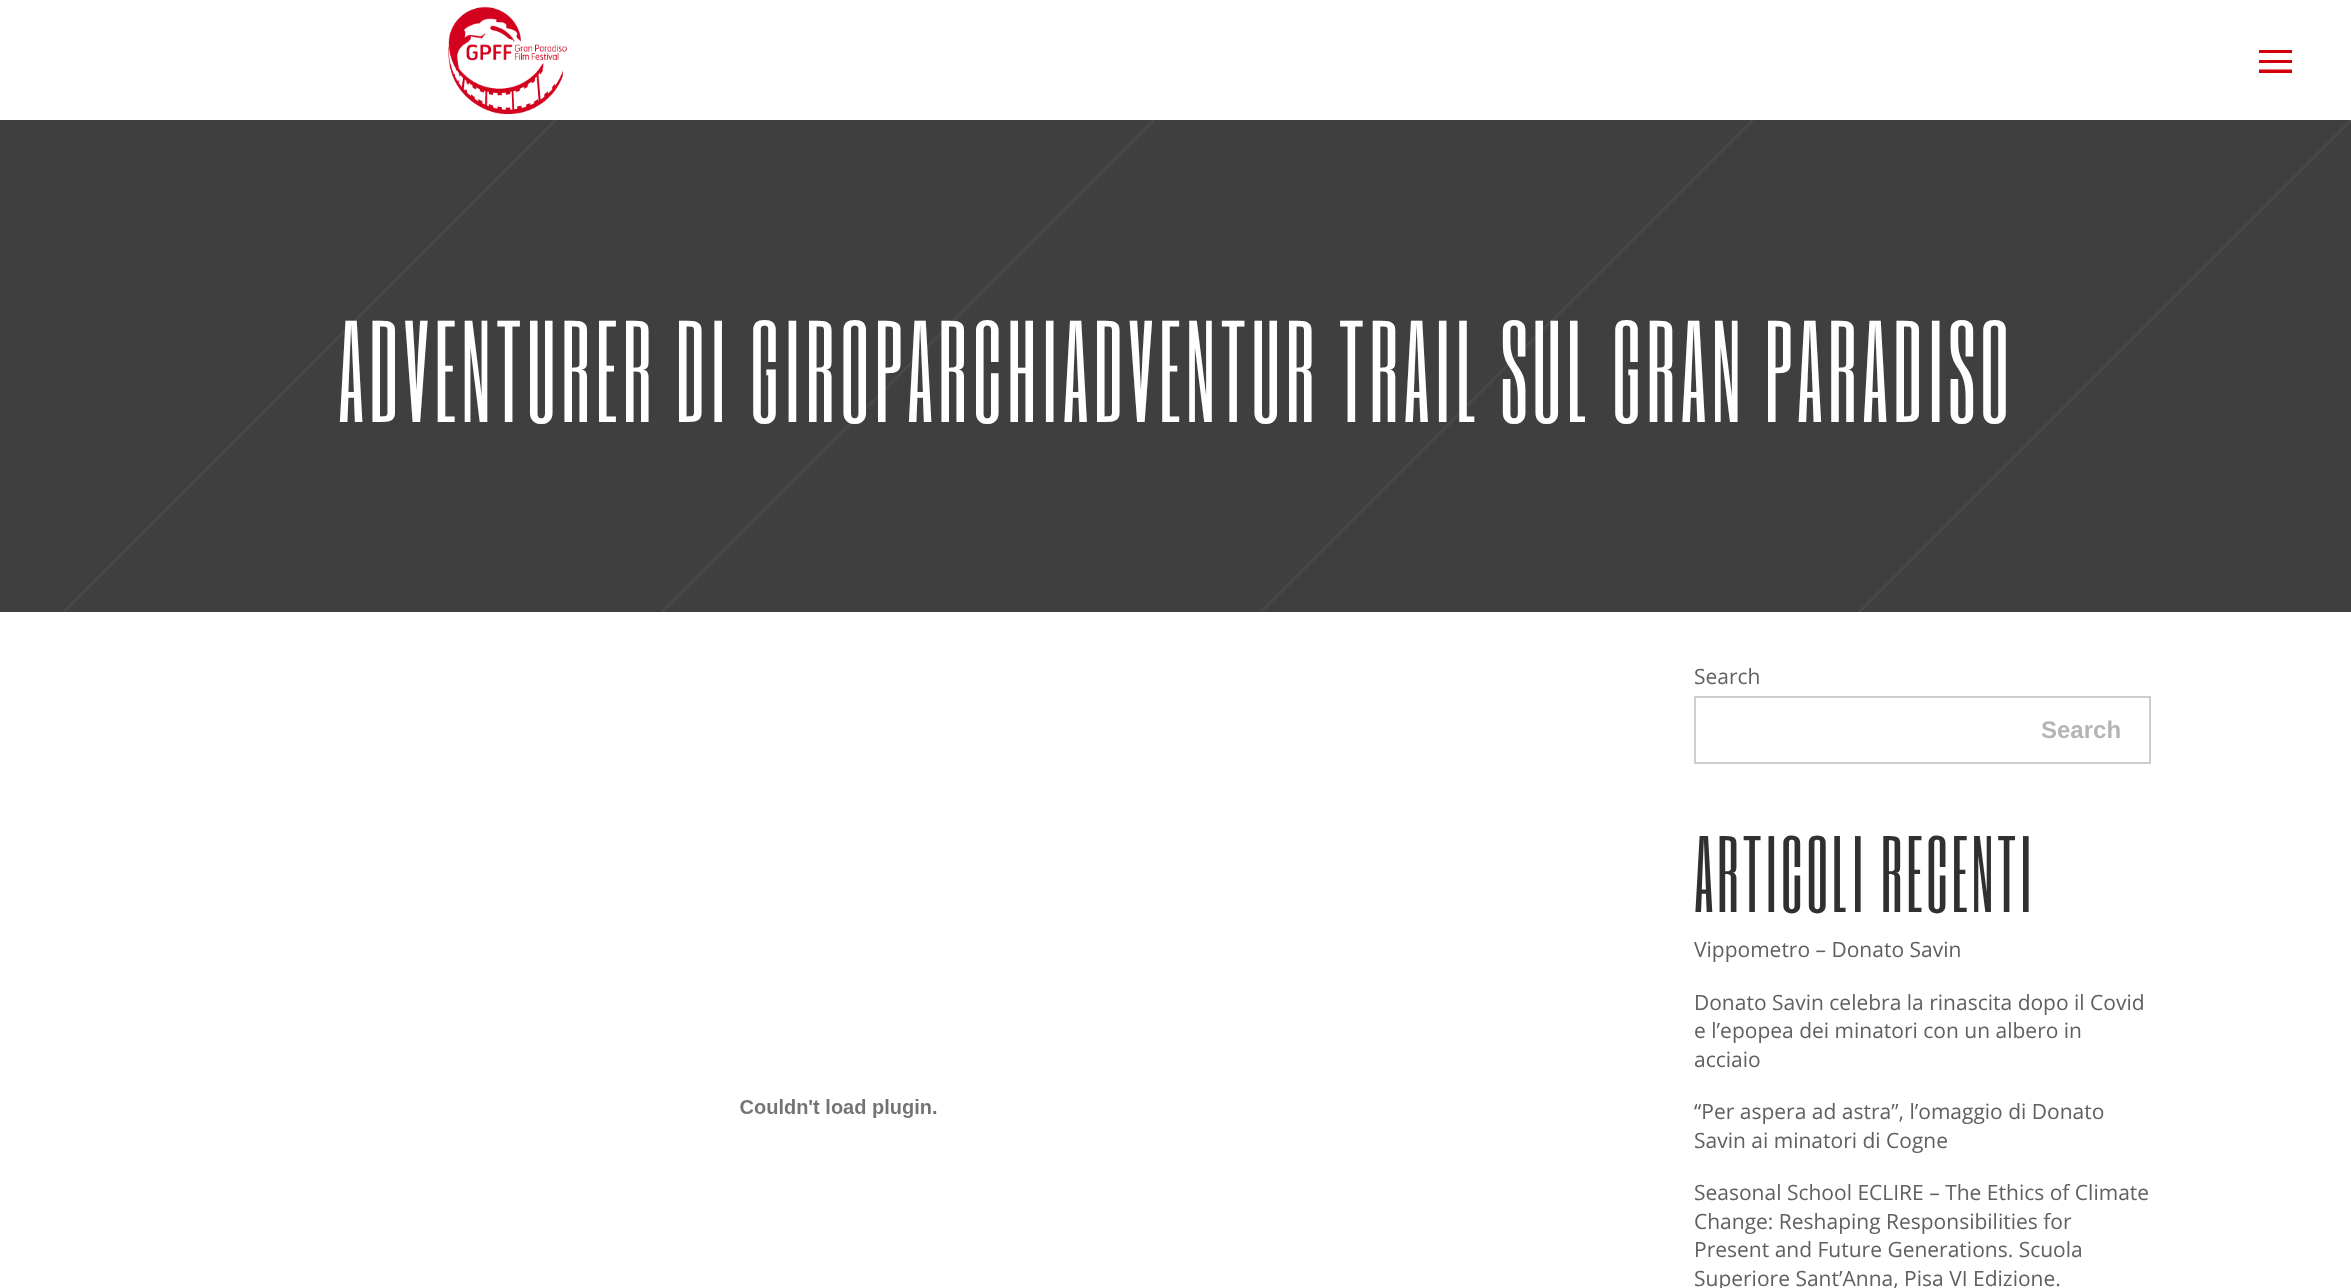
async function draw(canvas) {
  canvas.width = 2351
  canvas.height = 1288
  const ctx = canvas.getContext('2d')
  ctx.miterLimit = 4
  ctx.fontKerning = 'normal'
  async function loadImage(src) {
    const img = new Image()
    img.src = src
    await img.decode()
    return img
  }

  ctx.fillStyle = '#fff'
  ctx.fillRect(0, 0, 2351, 1288)
  ctx.drawImage(await loadImage('image0.png'), 448, 6, 119, 108)
  ctx.fillStyle = '#d3000c'
  ctx.beginPath()
  ctx.moveTo(2259, 63)
  ctx.lineTo(2259, 60)
  ctx.lineTo(2292, 60)
  ctx.lineTo(2292, 63)
  ctx.closePath()
  ctx.moveTo(2259, 53)
  ctx.lineTo(2259, 50)
  ctx.lineTo(2292, 50)
  ctx.lineTo(2292, 53)
  ctx.closePath()
  ctx.moveTo(2259, 73)
  ctx.lineTo(2259, 69.5)
  ctx.lineTo(2292, 69.5)
  ctx.lineTo(2292, 73)
  ctx.closePath()
  ctx.fill()
  ctx.drawImage(await loadImage('image1.png'), 0, 120, 2351, 492)
  ctx.letterSpacing = '4.5px'
  ctx.font = '120px Six Caps'
  ctx.fillStyle = '#fff'
  ctx.fillText('ADVENTURER DI GIROPARCHIADVENTUR TRAIL SUL GRAN PARADISO', 338, 422)
  ctx.drawImage(await loadImage('image2.png'), 740, 1099, 197, 19)
  ctx.letterSpacing = '0px'
  ctx.font = '21px Open Sans'
  ctx.fillStyle = '#606060'
  ctx.fillText('Search', 1694, 684)
  ctx.strokeStyle = '#cdcdcd'
  ctx.lineWidth = 2
  ctx.strokeRect(1695, 697, 455, 66)
  ctx.font = 'bold 24px Liberation Sans'
  ctx.fillStyle = '#b5b5b5'
  ctx.fillText('Search', 2041, 738)
  ctx.letterSpacing = '3px'
  ctx.font = '90px Six Caps'
  ctx.fillStyle = '#303030'
  ctx.fillText('ARTICOLI RECENTI', 1694, 912)
  ctx.letterSpacing = '0px'
  ctx.font = '21px Open Sans'
  ctx.fillStyle = '#606060'
  ctx.fillText('Vippometro – Donato Savin', 1694, 957)
  ctx.fillText('Donato Savin celebra la rinascita dopo il Covid', 1694, 1010)
  ctx.fillText('e l’epopea dei minatori con un albero in', 1694, 1038)
  ctx.fillText('acciaio', 1694, 1067)
  ctx.fillText('“Per aspera ad astra”, l’omaggio di Donato', 1694, 1119)
  ctx.fillText('Savin ai minatori di Cogne', 1694, 1148)
  ctx.fillText('Seasonal School ECLIRE – The Ethics of Climate', 1694, 1200)
  ctx.fillText('Change: Reshaping Responsibilities for', 1694, 1229)
  ctx.fillText('Present and Future Generations. Scuola', 1694, 1257)
  ctx.fillText('Superiore Sant’Anna, Pisa VI Edizione.', 1694, 1286)
}

draw(document.querySelector('canvas'))
